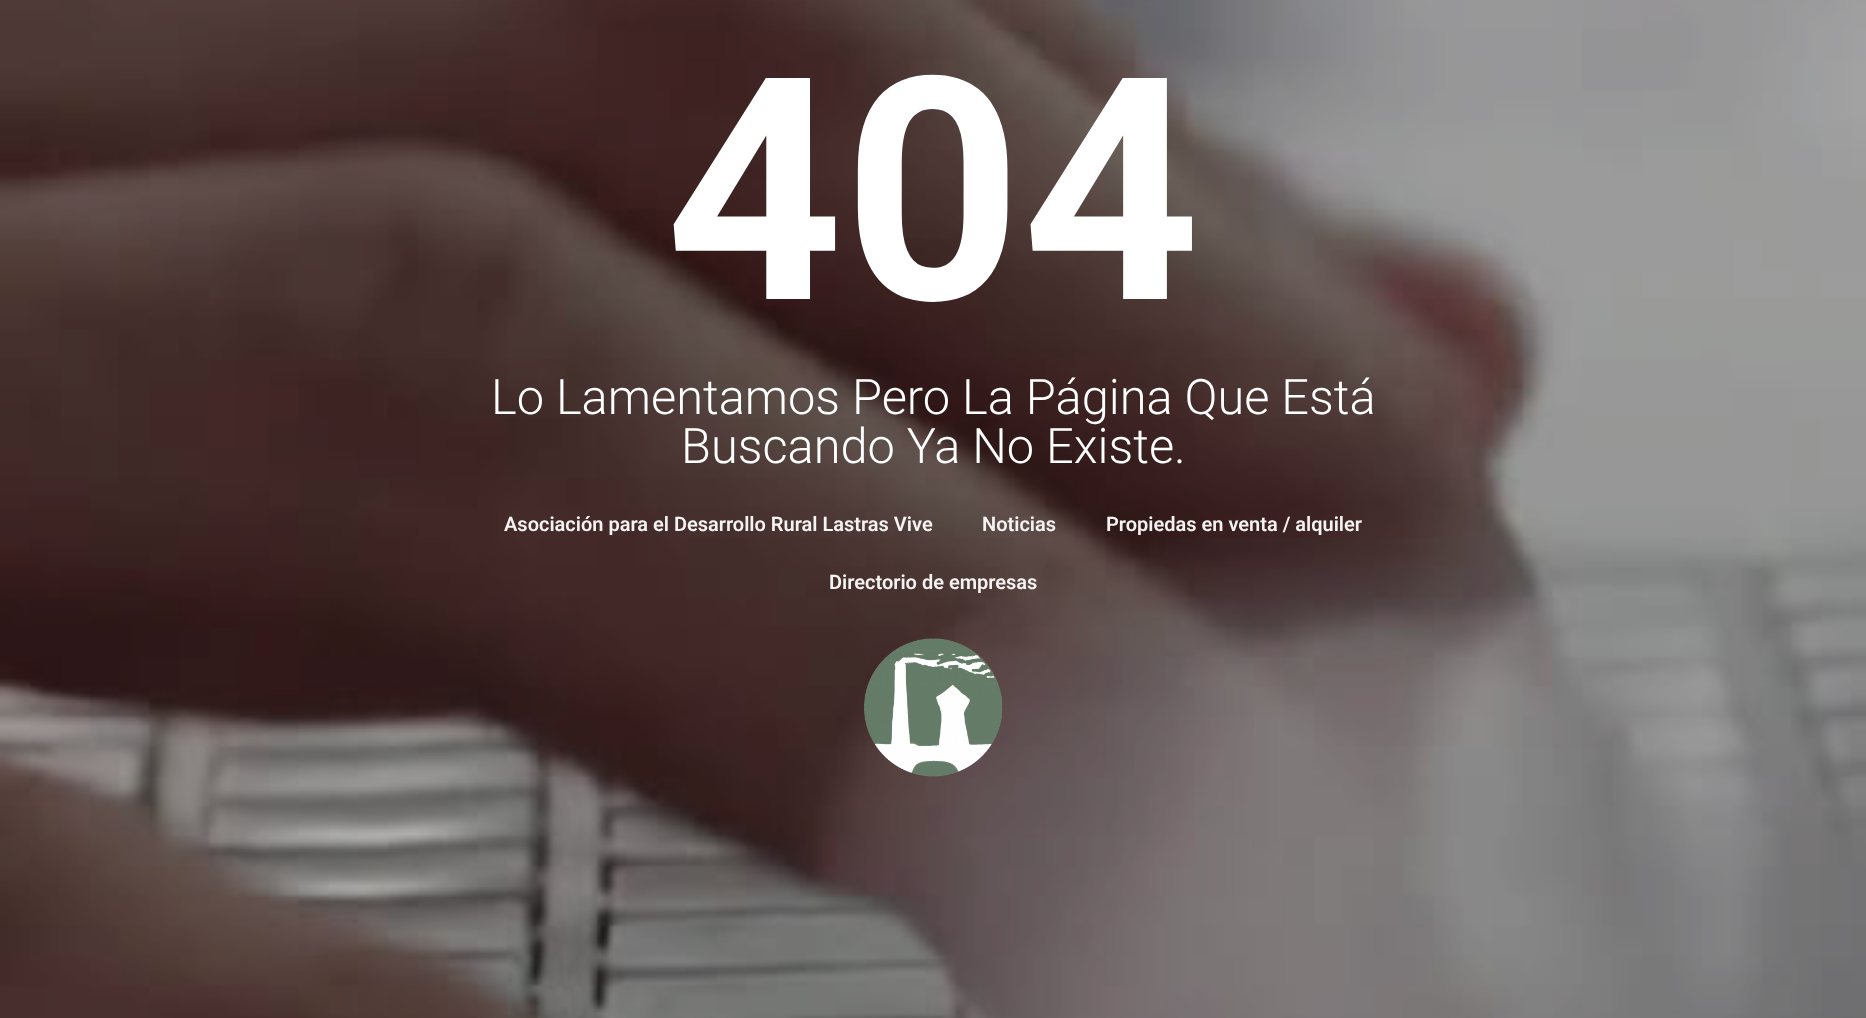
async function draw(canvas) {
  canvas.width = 1866
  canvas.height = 1018
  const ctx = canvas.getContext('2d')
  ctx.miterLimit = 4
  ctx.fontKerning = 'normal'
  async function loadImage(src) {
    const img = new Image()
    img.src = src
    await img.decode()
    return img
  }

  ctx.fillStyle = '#fff'
  ctx.fillRect(0, 0, 1866, 1018)
  ctx.drawImage(await loadImage('image0.png'), 0, 0, 1866, 1018)
  ctx.font = 'bold 311px Roboto'
  ctx.fillText('404', 665, 299)
  ctx.font = '300 48.75px Roboto'
  ctx.fillText('Lo Lamentamos Pero La Página Que Está', 491, 414)
  ctx.fillText('Buscando Ya No Existe.', 681, 463)
  ctx.font = '600 20px Roboto'
  ctx.fillStyle = '#f6f3f3'
  ctx.fillText('Asociación para el Desarrollo Rural Lastras Vive', 504, 531)
  ctx.fillText('Noticias', 982, 531)
  ctx.fillText('Propiedas en venta / alquiler', 1106, 531)
  ctx.fillText('Directorio de empresas', 829, 589)
  ctx.drawImage(await loadImage('image1.png'), 864, 638, 139, 139)
}

draw(document.querySelector('canvas'))
